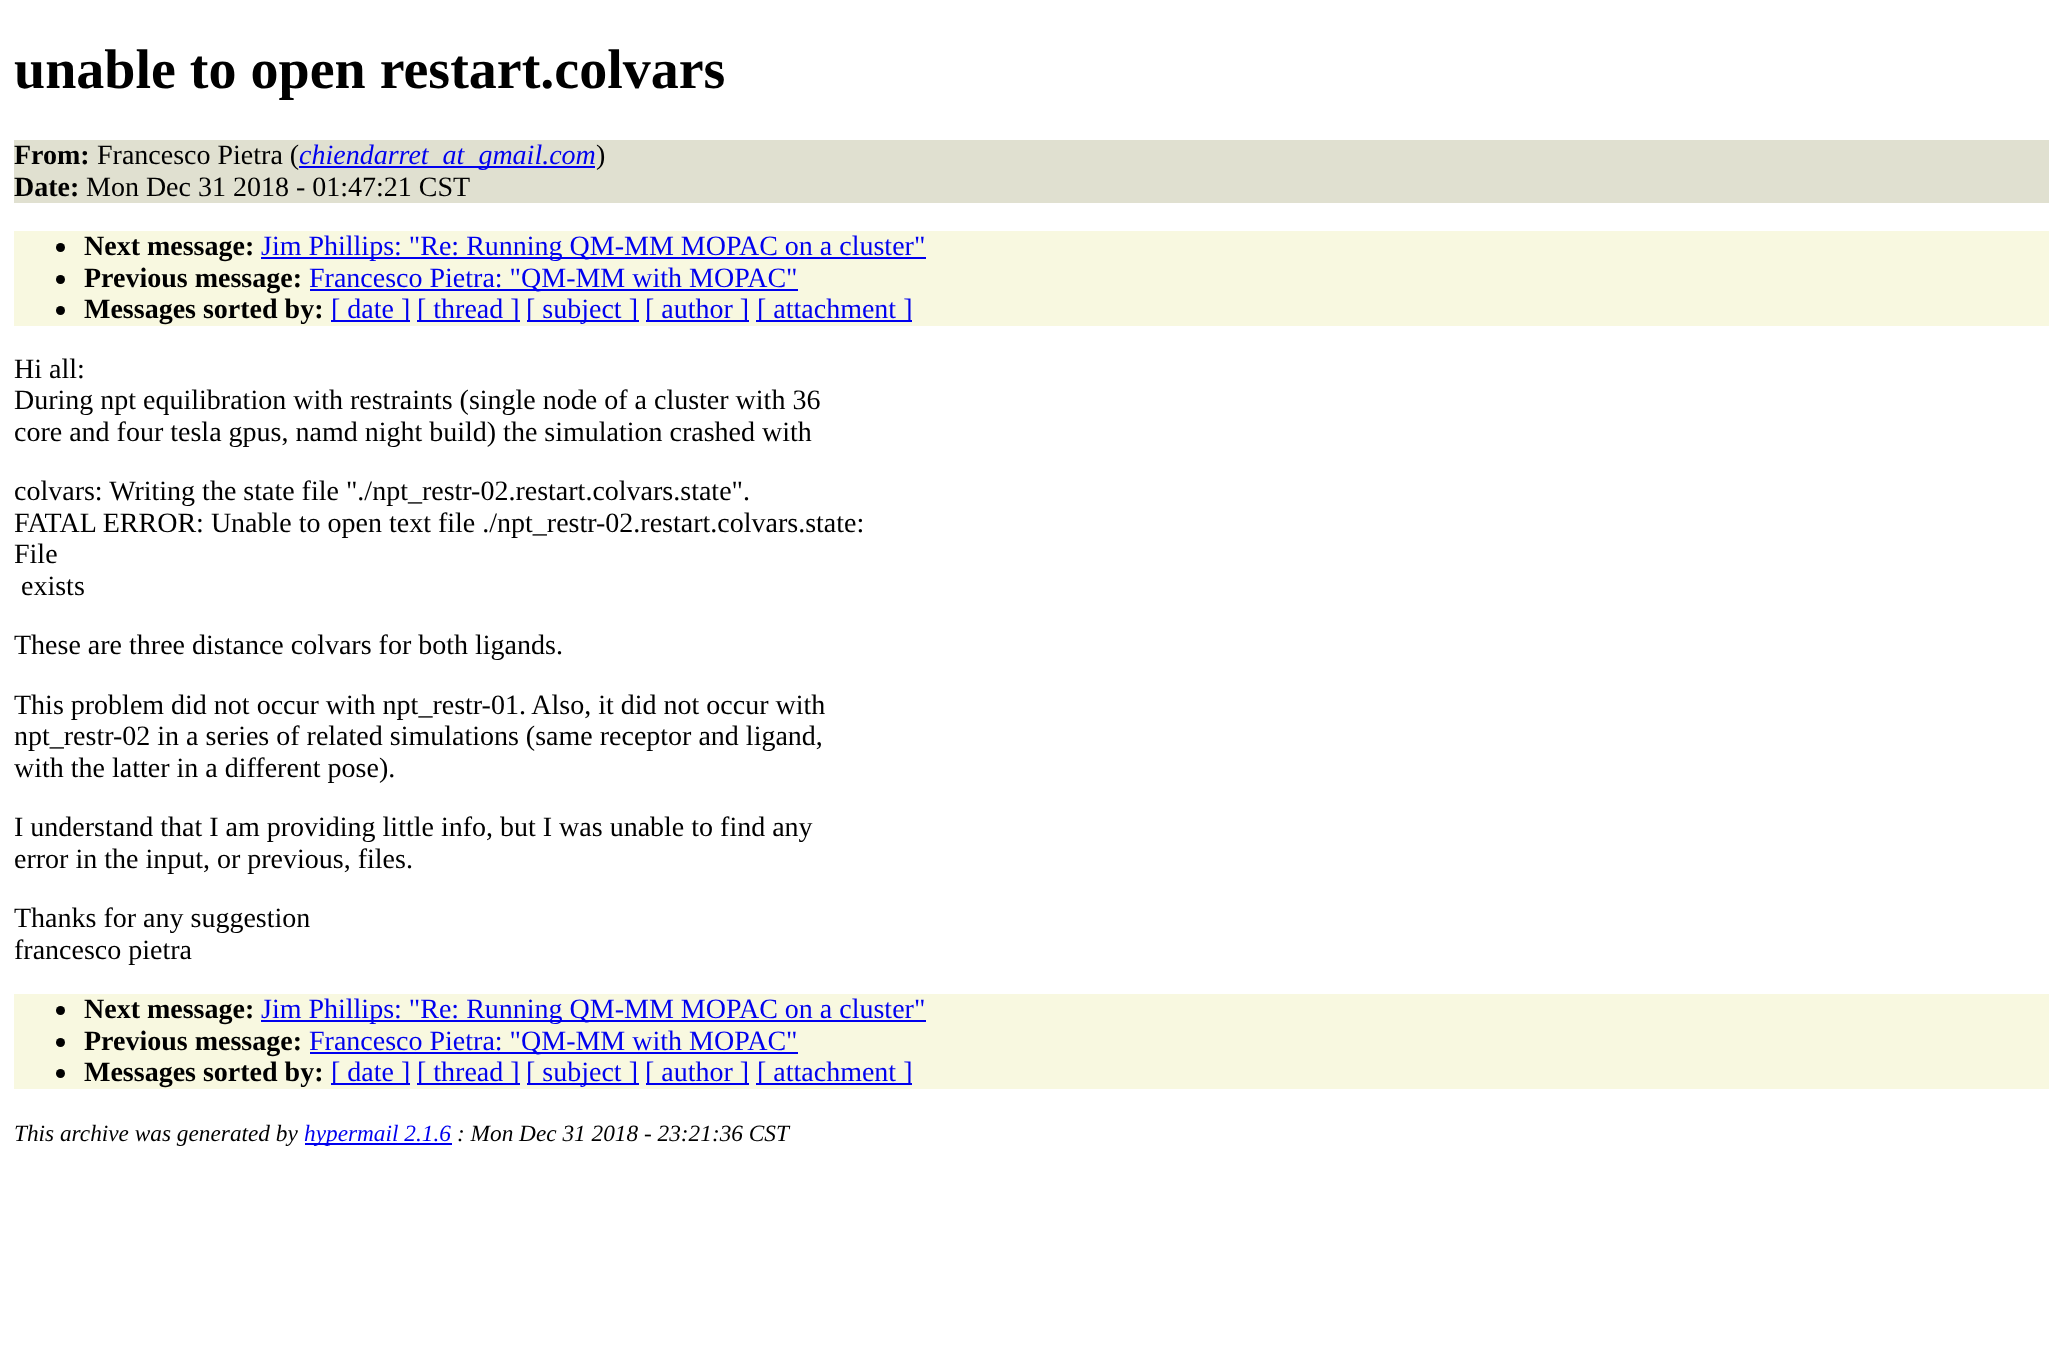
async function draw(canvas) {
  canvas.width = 2062
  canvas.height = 1371
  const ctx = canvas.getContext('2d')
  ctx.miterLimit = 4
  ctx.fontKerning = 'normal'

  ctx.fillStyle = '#fff'
  ctx.fillRect(0, 0, 2062, 1371)
  ctx.font = 'bold 56px Liberation Serif'
  ctx.fillStyle = '#000'
  ctx.fillText('unable to open restart.colvars', 14, 88)
  ctx.fillStyle = '#e0e0d0'
  ctx.fillRect(14, 140, 2035, 63)
  ctx.font = 'bold 28px Liberation Serif'
  ctx.fillStyle = '#000'
  ctx.fillText('From:', 14, 164)
  ctx.font = '28px Liberation Serif'
  ctx.fillText('Francesco Pietra (', 97, 164)
  ctx.fillStyle = '#00e'
  ctx.fillRect(299, 166, 296, 2)
  ctx.font = 'italic 28px Liberation Serif'
  ctx.fillText('chiendarret_at_gmail.com', 299, 164)
  ctx.font = '28px Liberation Serif'
  ctx.fillStyle = '#000'
  ctx.fillText(')', 596, 164)
  ctx.font = 'bold 28px Liberation Serif'
  ctx.fillText('Date:', 14, 196)
  ctx.font = '28px Liberation Serif'
  ctx.fillText('Mon Dec 31 2018 - 01:47:21 CST', 86, 196)
  ctx.fillStyle = '#f8f8e0'
  ctx.fillRect(14, 231, 2035, 95)
  ctx.fillStyle = '#000'
  ctx.beginPath()
  ctx.arc(60.5, 247.5, 4.5, 0, 2 * Math.PI)
  ctx.fill()
  ctx.font = 'bold 28px Liberation Serif'
  ctx.fillText('Next message:', 84, 255)
  ctx.fillStyle = '#00e'
  ctx.fillRect(261, 257, 665, 2)
  ctx.font = '28px Liberation Serif'
  ctx.fillText('Jim Phillips: "Re: Running QM-MM MOPAC on a cluster"', 261, 255)
  ctx.fillStyle = '#000'
  ctx.beginPath()
  ctx.arc(60.5, 279.5, 4.5, 0, 2 * Math.PI)
  ctx.fill()
  ctx.font = 'bold 28px Liberation Serif'
  ctx.fillText('Previous message:', 84, 287)
  ctx.fillStyle = '#00e'
  ctx.fillRect(310, 289, 488, 2)
  ctx.font = '28px Liberation Serif'
  ctx.fillText('Francesco Pietra: "QM-MM with MOPAC"', 309, 287)
  ctx.fillStyle = '#000'
  ctx.beginPath()
  ctx.arc(60.5, 310.5, 4.5, 0, 2 * Math.PI)
  ctx.fill()
  ctx.font = 'bold 28px Liberation Serif'
  ctx.fillText('Messages sorted by:', 84, 318)
  ctx.fillStyle = '#00e'
  ctx.fillRect(331, 320, 79, 2)
  ctx.font = '28px Liberation Serif'
  ctx.fillText('[ date ]', 331, 318)
  ctx.fillRect(417, 320, 103, 2)
  ctx.fillText('[ thread ]', 417, 318)
  ctx.fillRect(527, 320, 112, 2)
  ctx.fillText('[ subject ]', 526, 318)
  ctx.fillRect(646, 320, 103, 2)
  ctx.fillText('[ author ]', 645, 318)
  ctx.fillRect(756, 320, 156, 2)
  ctx.fillText('[ attachment ]', 757, 318)
  ctx.fillStyle = '#000'
  ctx.fillText('Hi all:', 14, 378)
  ctx.fillText('During npt equilibration with restraints (single node of a cluster with 36', 14, 409)
  ctx.fillText('core and four tesla gpus, namd night build) the simulation crashed with', 14, 441)
  ctx.fillText('colvars: Writing the state file "./npt_restr-02.restart.colvars.state".', 14, 500)
  ctx.fillText('FATAL ERROR: Unable to open text file ./npt_restr-02.restart.colvars.state:', 14, 532)
  ctx.fillText('File', 14, 563)
  ctx.fillText('exists', 21, 595)
  ctx.fillText('These are three distance colvars for both ligands.', 14, 654)
  ctx.fillText('This problem did not occur with npt_restr-01. Also, it did not occur with', 14, 714)
  ctx.fillText('npt_restr-02 in a series of related simulations (same receptor and ligand,', 14, 745)
  ctx.fillText('with the latter in a different pose).', 14, 777)
  ctx.fillText('I understand that I am providing little info, but I was unable to find any', 14, 836)
  ctx.fillText('error in the input, or previous, files.', 14, 868)
  ctx.fillText('Thanks for any suggestion', 14, 927)
  ctx.fillText('francesco pietra', 14, 959)
  ctx.fillStyle = '#f8f8e0'
  ctx.fillRect(14, 994, 2035, 95)
  ctx.fillStyle = '#000'
  ctx.beginPath()
  ctx.arc(60.5, 1010.5, 4.5, 0, 2 * Math.PI)
  ctx.fill()
  ctx.font = 'bold 28px Liberation Serif'
  ctx.fillText('Next message:', 84, 1018)
  ctx.fillStyle = '#00e'
  ctx.fillRect(261, 1020, 665, 2)
  ctx.font = '28px Liberation Serif'
  ctx.fillText('Jim Phillips: "Re: Running QM-MM MOPAC on a cluster"', 261, 1018)
  ctx.fillStyle = '#000'
  ctx.beginPath()
  ctx.arc(60.5, 1042.5, 4.5, 0, 2 * Math.PI)
  ctx.fill()
  ctx.font = 'bold 28px Liberation Serif'
  ctx.fillText('Previous message:', 84, 1050)
  ctx.fillStyle = '#00e'
  ctx.fillRect(310, 1052, 488, 2)
  ctx.font = '28px Liberation Serif'
  ctx.fillText('Francesco Pietra: "QM-MM with MOPAC"', 309, 1050)
  ctx.fillStyle = '#000'
  ctx.beginPath()
  ctx.arc(60.5, 1073.5, 4.5, 0, 2 * Math.PI)
  ctx.fill()
  ctx.font = 'bold 28px Liberation Serif'
  ctx.fillText('Messages sorted by:', 84, 1081)
  ctx.fillStyle = '#00e'
  ctx.fillRect(331, 1083, 79, 2)
  ctx.font = '28px Liberation Serif'
  ctx.fillText('[ date ]', 331, 1081)
  ctx.fillRect(417, 1083, 103, 2)
  ctx.fillText('[ thread ]', 417, 1081)
  ctx.fillRect(527, 1083, 112, 2)
  ctx.fillText('[ subject ]', 526, 1081)
  ctx.fillRect(646, 1083, 103, 2)
  ctx.fillText('[ author ]', 645, 1081)
  ctx.fillRect(756, 1083, 156, 2)
  ctx.fillText('[ attachment ]', 757, 1081)
  ctx.font = 'italic 23.3px Liberation Serif'
  ctx.fillStyle = '#000'
  ctx.fillText('This archive was generated by', 14, 1141)
  ctx.fillStyle = '#00e'
  ctx.fillRect(305, 1143, 147, 2)
  ctx.fillText('hypermail 2.1.6', 304, 1141)
  ctx.fillStyle = '#000'
  ctx.fillText(': Mon Dec 31 2018 - 23:21:36 CST', 457, 1141)
}

draw(document.querySelector('canvas'))
